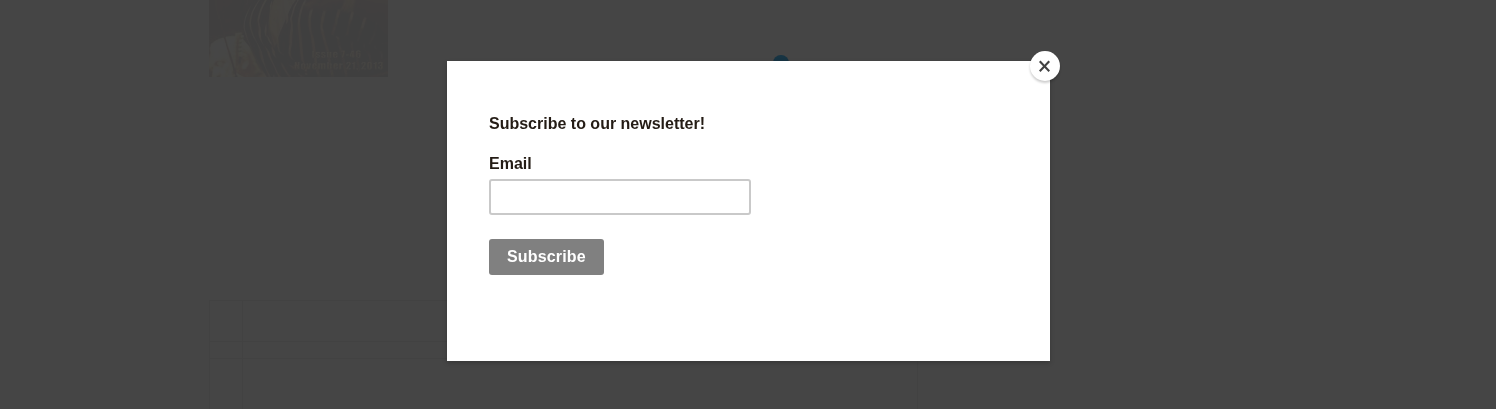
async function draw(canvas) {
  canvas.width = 1496
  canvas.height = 409
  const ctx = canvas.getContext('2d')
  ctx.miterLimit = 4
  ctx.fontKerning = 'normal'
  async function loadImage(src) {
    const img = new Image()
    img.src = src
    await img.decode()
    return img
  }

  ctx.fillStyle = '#454545'
  ctx.fillRect(0, 0, 1496, 409)
  ctx.drawImage(await loadImage('image0.png'), 209, 0, 179, 77)
  ctx.fillStyle = '#424242'
  ctx.fillRect(242, 300, 205, 1)
  ctx.fillRect(209, 341, 34, 1)
  ctx.fillRect(242, 358, 205, 1)
  ctx.fillRect(242, 358, 1, 51)
  ctx.fillRect(209, 358, 34, 1)
  ctx.fillRect(242, 341, 1, 18)
  ctx.fillRect(242, 341, 205, 1)
  ctx.fillRect(242, 300, 1, 42)
  ctx.fillRect(209, 300, 34, 1)
  ctx.fillRect(209, 358, 1, 51)
  ctx.fillRect(209, 341, 1, 18)
  ctx.fillRect(209, 300, 1, 42)
  ctx.fillRect(917, 358, 1, 51)
  ctx.fillStyle = '#173443'
  ctx.beginPath()
  ctx.arc(781, 63, 8, 0, 2 * Math.PI)
  ctx.fill()
  ctx.fillStyle = '#00000033'
  ctx.filter = 'blur(2px)'
  ctx.beginPath()
  ctx.rect(447, 63, 603, 300)
  ctx.fill()
  ctx.filter = 'none'
  ctx.drawImage(await loadImage('image1.png'), 447, 61, 603, 300)
  ctx.filter = 'blur(1px)'
  ctx.beginPath()
  ctx.roundRect(1030, 53, 30, 30, 15)
  ctx.fill()
  ctx.filter = 'none'
  ctx.fillStyle = '#fff'
  ctx.beginPath()
  ctx.arc(1045, 66, 15, 0, 2 * Math.PI)
  ctx.fill()
  ctx.fillStyle = '#414141'
  ctx.beginPath()
  ctx.moveTo(1048.5, 60.5)
  ctx.lineTo(1050, 62)
  ctx.lineTo(1040.5, 72)
  ctx.lineTo(1039, 70.5)
  ctx.closePath()
  ctx.fill()
  ctx.beginPath()
  ctx.moveTo(1039, 62)
  ctx.lineTo(1040.5, 60.5)
  ctx.lineTo(1050, 70.5)
  ctx.lineTo(1048.5, 72)
  ctx.closePath()
  ctx.fill()
}

draw(document.querySelector('canvas'))
